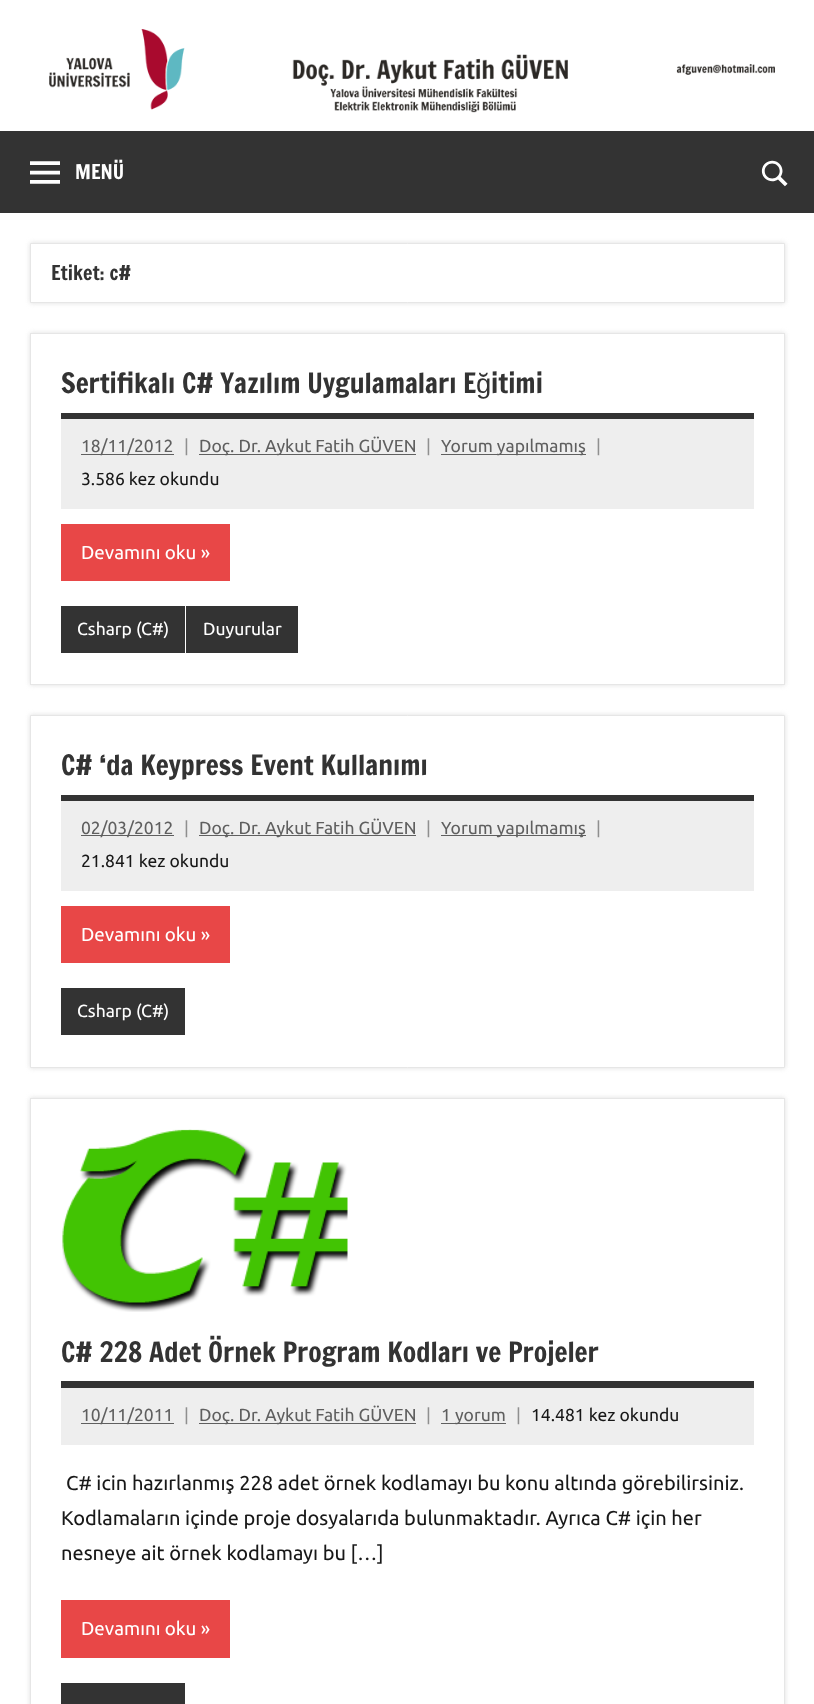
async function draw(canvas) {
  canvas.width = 814
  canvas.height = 1704
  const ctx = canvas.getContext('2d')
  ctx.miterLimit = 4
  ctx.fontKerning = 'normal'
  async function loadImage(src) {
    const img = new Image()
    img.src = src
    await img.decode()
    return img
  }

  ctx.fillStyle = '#fff'
  ctx.fillRect(0, 0, 814, 1704)
  ctx.drawImage(await loadImage('image0.png'), 49, 29, 726, 84)
  ctx.fillStyle = '#333'
  ctx.fillRect(0, 131, 814, 82)
  ctx.drawImage(await loadImage('image1.png'), 30, 161, 30, 23)
  ctx.font = '20px Francois One'
  ctx.fillStyle = '#fff'
  ctx.fillText('MENÜ', 75, 179)
  ctx.drawImage(await loadImage('image2.png'), 761, 160, 27, 27)
  ctx.fillStyle = '#ddd'
  ctx.filter = 'blur(2.5px)'
  ctx.beginPath()
  ctx.rect(30, 243, 755, 60)
  ctx.fill()
  ctx.filter = 'none'
  ctx.fillStyle = '#fff'
  ctx.beginPath()
  ctx.rect(30.5, 243.5, 754, 59)
  ctx.fill()
  ctx.strokeStyle = '#e6e6e6'
  ctx.stroke()
  ctx.fillStyle = '#333'
  ctx.fillText('Etiket: c#', 51, 280)
  ctx.save()
  ctx.beginPath()
  ctx.moveTo(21, 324)
  ctx.lineTo(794, 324)
  ctx.lineTo(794, 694)
  ctx.lineTo(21, 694)
  ctx.closePath()
  ctx.moveTo(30, 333)
  ctx.lineTo(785, 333)
  ctx.lineTo(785, 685)
  ctx.lineTo(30, 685)
  ctx.closePath()
  ctx.clip('evenodd')
  ctx.fillStyle = '#ddd'
  ctx.filter = 'blur(2.5px)'
  ctx.beginPath()
  ctx.rect(30, 333, 755, 352)
  ctx.fill()
  ctx.filter = 'none'
  ctx.restore()
  ctx.strokeRect(30.5, 333.5, 754, 351)
  ctx.fillRect(61, 413, 693, 6)
  ctx.font = '27.5px Francois One'
  ctx.fillText('Sertifikalı C# Yazılım Uygulamaları E', 61, 393)
  ctx.font = '27.5px Liberation Sans'
  ctx.fillText('ğ', 476, 393)
  ctx.font = '27.5px Francois One'
  ctx.fillText('itimi', 491, 393)
  ctx.fillStyle = '#eee'
  ctx.fillRect(61, 419, 693, 90)
  ctx.fillStyle = '#5f5f5f'
  ctx.fillRect(81, 454, 93, 1)
  ctx.font = '17.5px Ubuntu'
  ctx.fillText('18/11/2012', 81, 452)
  ctx.fillStyle = '#8f8f8f'
  ctx.fillText('|', 184, 452)
  ctx.fillStyle = '#5f5f5f'
  ctx.fillRect(199, 454, 217, 1)
  ctx.fillText('Doç. Dr. Aykut Fatih GÜVEN', 199, 452)
  ctx.fillStyle = '#8f8f8f'
  ctx.fillText('|', 426, 452)
  ctx.fillStyle = '#5f5f5f'
  ctx.fillRect(441, 454, 145, 1)
  ctx.fillText('Yorum yapılmamış', 441, 452)
  ctx.fillStyle = '#8f8f8f'
  ctx.fillText('|', 596, 452)
  ctx.fillStyle = '#181818'
  ctx.fillText('3.586 kez okundu', 81, 485)
  ctx.fillStyle = '#e84747'
  ctx.fillRect(61, 524, 169, 57)
  ctx.font = '18.75px Ubuntu'
  ctx.fillStyle = '#fff'
  ctx.fillText('Devamını oku »', 81, 559)
  ctx.fillStyle = '#333'
  ctx.fillRect(61, 606, 124, 47)
  ctx.font = '17.5px Ubuntu'
  ctx.fillStyle = '#fff'
  ctx.fillText('Csharp (C#)', 77, 635)
  ctx.fillStyle = '#333'
  ctx.fillRect(186, 606, 112, 47)
  ctx.fillStyle = '#fff'
  ctx.fillText('Duyurular', 203, 635)
  ctx.fillStyle = '#ddd'
  ctx.filter = 'blur(2.5px)'
  ctx.beginPath()
  ctx.rect(30, 715, 755, 353)
  ctx.fill()
  ctx.filter = 'none'
  ctx.fillStyle = '#fff'
  ctx.beginPath()
  ctx.rect(30.5, 715.5, 754, 352)
  ctx.fill()
  ctx.stroke()
  ctx.fillStyle = '#333'
  ctx.fillRect(61, 795, 693, 6)
  ctx.font = '27.5px Francois One'
  ctx.fillText('C# ‘da Keypress Event Kullanımı', 61, 775)
  ctx.fillStyle = '#eee'
  ctx.fillRect(61, 801, 693, 90)
  ctx.fillStyle = '#5f5f5f'
  ctx.fillRect(81, 835, 93, 1)
  ctx.font = '17.5px Ubuntu'
  ctx.fillText('02/03/2012', 81, 834)
  ctx.fillStyle = '#8f8f8f'
  ctx.fillText('|', 184, 834)
  ctx.fillStyle = '#5f5f5f'
  ctx.fillRect(199, 835, 217, 1)
  ctx.fillText('Doç. Dr. Aykut Fatih GÜVEN', 199, 834)
  ctx.fillStyle = '#8f8f8f'
  ctx.fillText('|', 426, 834)
  ctx.fillStyle = '#5f5f5f'
  ctx.fillRect(441, 835, 145, 1)
  ctx.fillText('Yorum yapılmamış', 441, 834)
  ctx.fillStyle = '#8f8f8f'
  ctx.fillText('|', 596, 834)
  ctx.fillStyle = '#181818'
  ctx.fillText('21.841 kez okundu', 81, 867)
  ctx.fillStyle = '#e84747'
  ctx.fillRect(61, 906, 169, 57)
  ctx.font = '18.75px Ubuntu'
  ctx.fillStyle = '#fff'
  ctx.fillText('Devamını oku »', 81, 941)
  ctx.fillStyle = '#333'
  ctx.fillRect(61, 988, 124, 47)
  ctx.font = '17.5px Ubuntu'
  ctx.fillStyle = '#fff'
  ctx.fillText('Csharp (C#)', 77, 1017)
  ctx.save()
  ctx.beginPath()
  ctx.moveTo(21, 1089)
  ctx.lineTo(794, 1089)
  ctx.lineTo(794, 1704)
  ctx.lineTo(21, 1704)
  ctx.closePath()
  ctx.moveTo(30, 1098)
  ctx.lineTo(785, 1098)
  ctx.lineTo(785, 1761)
  ctx.lineTo(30, 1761)
  ctx.closePath()
  ctx.clip('evenodd')
  ctx.fillStyle = '#ddd'
  ctx.filter = 'blur(2.5px)'
  ctx.beginPath()
  ctx.rect(30, 1098, 755, 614)
  ctx.fill()
  ctx.filter = 'none'
  ctx.restore()
  ctx.strokeRect(30.5, 1098.5, 754, 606)
  ctx.drawImage(await loadImage('image3.png'), 62, 1129, 286, 183)
  ctx.fillStyle = '#333'
  ctx.fillRect(61, 1381, 693, 7)
  ctx.font = '27.5px Francois One'
  ctx.fillText('C# 228 Adet Örnek Program Kodları ve Projeler', 61, 1362)
  ctx.fillStyle = '#eee'
  ctx.fillRect(61, 1388, 693, 57)
  ctx.fillStyle = '#5f5f5f'
  ctx.fillRect(81, 1423, 93, 1)
  ctx.font = '17.5px Ubuntu'
  ctx.fillText('10/11/2011', 81, 1421)
  ctx.fillStyle = '#8f8f8f'
  ctx.fillText('|', 184, 1421)
  ctx.fillStyle = '#5f5f5f'
  ctx.fillRect(199, 1423, 217, 1)
  ctx.fillText('Doç. Dr. Aykut Fatih GÜVEN', 199, 1421)
  ctx.fillStyle = '#8f8f8f'
  ctx.fillText('|', 426, 1421)
  ctx.fillStyle = '#5f5f5f'
  ctx.fillRect(441, 1423, 65, 1)
  ctx.fillText('1 yorum', 441, 1421)
  ctx.fillStyle = '#8f8f8f'
  ctx.fillText('|', 516, 1421)
  ctx.fillStyle = '#181818'
  ctx.fillText('14.481 kez okundu', 531, 1421)
  ctx.font = '20px Ubuntu'
  ctx.fillText('C# icin hazırlanmış 228 adet örnek kodlamayı bu konu altında görebilirsiniz.', 66, 1490)
  ctx.fillText('Kodlamaların içinde proje dosyalarıda bulunmaktadır. Ayrıca C# için her', 61, 1525)
  ctx.fillText('nesneye ait örnek kodlamayı bu […]', 61, 1560)
  ctx.fillStyle = '#e84747'
  ctx.fillRect(61, 1600, 169, 58)
  ctx.font = '18.75px Ubuntu'
  ctx.fillStyle = '#fff'
  ctx.fillText('Devamını oku »', 81, 1635)
  ctx.fillStyle = '#333'
  ctx.fillRect(61, 1683, 124, 21)
}

draw(document.querySelector('canvas'))
